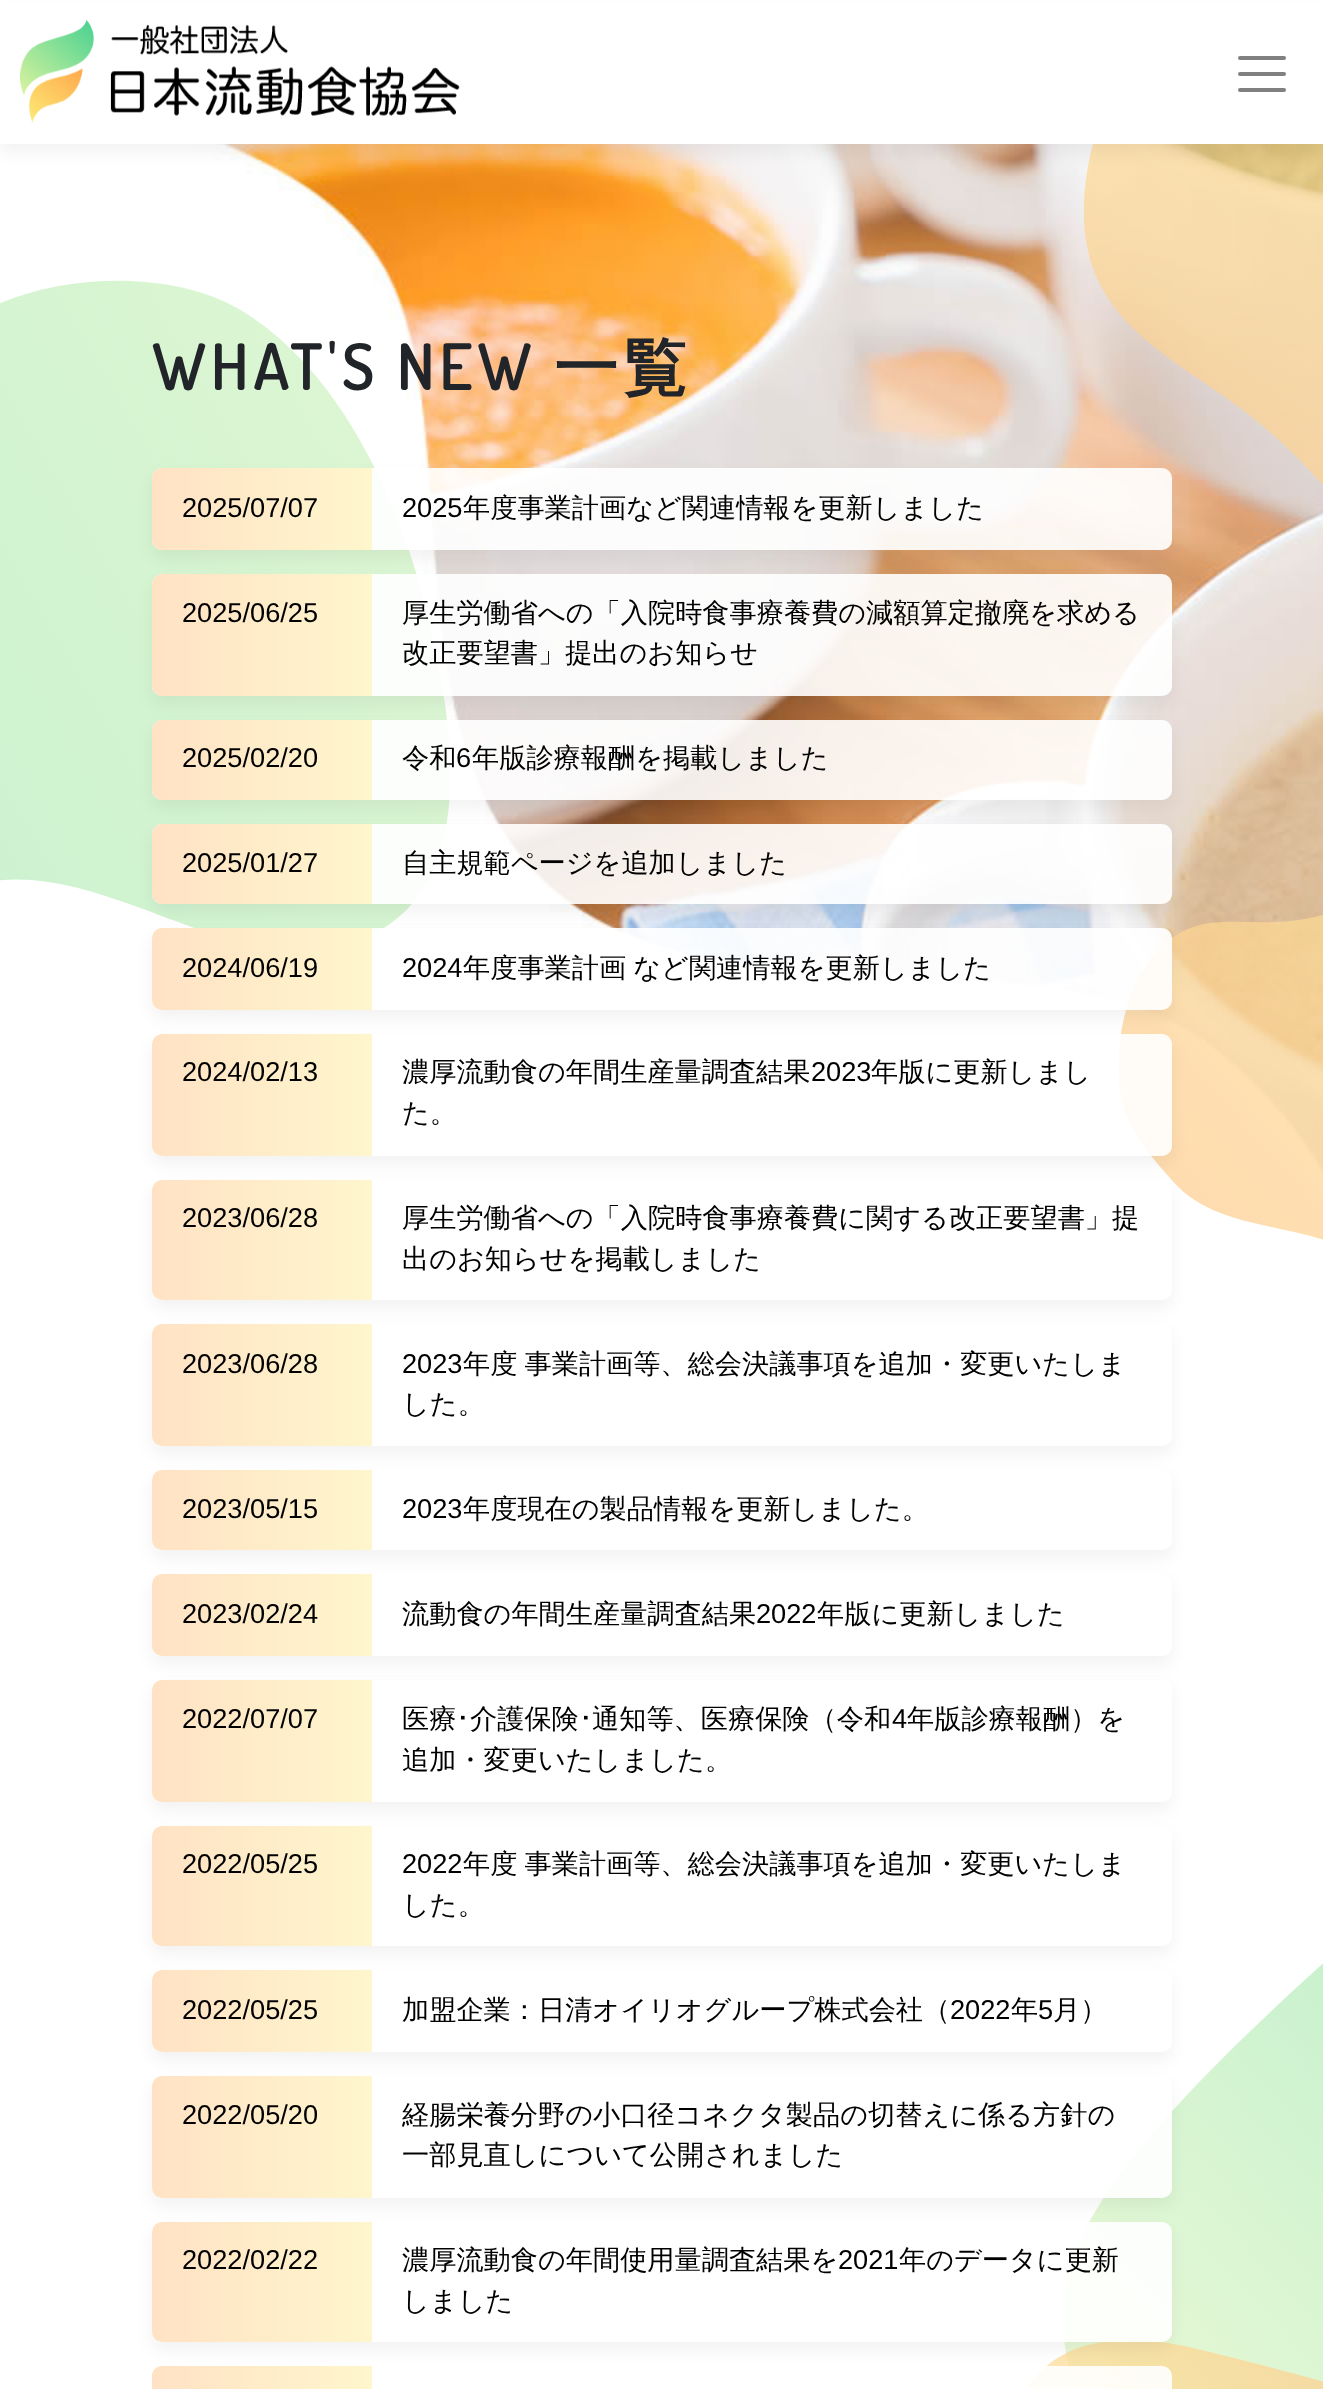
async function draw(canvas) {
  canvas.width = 1323
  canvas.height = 2389
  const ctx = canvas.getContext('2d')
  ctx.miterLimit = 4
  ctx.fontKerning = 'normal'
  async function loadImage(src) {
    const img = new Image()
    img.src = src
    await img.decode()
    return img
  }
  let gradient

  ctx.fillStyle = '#fff'
  ctx.fillRect(0, 0, 1323, 2389)
  ctx.drawImage(await loadImage('image0.png'), 22, 144, 1301, 1030)
  ctx.drawImage(await loadImage('image1.png'), 0, 280, 450, 655)
  ctx.drawImage(await loadImage('image2.png'), 1084, 144, 239, 341)
  ctx.drawImage(await loadImage('image3.png'), 1118, 915, 205, 325)
  ctx.drawImage(await loadImage('image4.png'), 1063, 1963, 260, 426)
  ctx.drawImage(await loadImage('image5.png'), 1026, 2340, 297, 49)
  ctx.fillStyle = '#0000000d'
  ctx.filter = 'blur(8px)'
  ctx.beginPath()
  ctx.rect(0, 8, 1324, 144)
  ctx.fill()
  ctx.filter = 'none'
  ctx.fillStyle = '#fff'
  ctx.fillRect(0, 1, 1323, 143)
  ctx.drawImage(await loadImage('image6.png'), 20, 20, 440, 103)
  ctx.beginPath()
  ctx.moveTo(1240, 58)
  ctx.lineTo(1284, 58)
  ctx.moveTo(1240, 74)
  ctx.lineTo(1284, 74)
  ctx.moveTo(1240, 90)
  ctx.lineTo(1284, 90)
  ctx.strokeStyle = '#808080'
  ctx.lineWidth = 4
  ctx.lineCap = 'round'
  ctx.stroke()
  ctx.letterSpacing = '4.75px'
  ctx.font = '600 64px Dosis'
  ctx.fillStyle = '#212529'
  ctx.fillText('WHAT\'S NEW', 152, 390)
  ctx.font = 'bold 64px WenQuanYi Zen Hei'
  ctx.fillText('一覧', 554, 390)
  ctx.save()
  ctx.beginPath()
  ctx.moveTo(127, 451)
  ctx.lineTo(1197, 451)
  ctx.lineTo(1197, 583)
  ctx.lineTo(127, 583)
  ctx.closePath()
  ctx.moveTo(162, 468)
  ctx.lineTo(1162, 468)
  ctx.bezierCurveTo(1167.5, 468, 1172, 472.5, 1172, 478)
  ctx.lineTo(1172, 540)
  ctx.bezierCurveTo(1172, 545.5, 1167.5, 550, 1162, 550)
  ctx.lineTo(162, 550)
  ctx.bezierCurveTo(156.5, 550, 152, 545.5, 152, 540)
  ctx.lineTo(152, 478)
  ctx.bezierCurveTo(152, 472.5, 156.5, 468, 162, 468)
  ctx.closePath()
  ctx.clip('evenodd')
  ctx.fillStyle = '#0000000d'
  ctx.filter = 'blur(8px)'
  ctx.beginPath()
  ctx.roundRect(152, 476, 1020, 82, 10)
  ctx.fill()
  ctx.filter = 'none'
  ctx.restore()
  ctx.fillStyle = '#ffffffe6'
  ctx.beginPath()
  ctx.roundRect(152, 468, 1020, 82, 10)
  ctx.fill()
  gradient = ctx.createLinearGradient(152, 509, 372, 509)
  gradient.addColorStop(0, '#ffe2c4')
  gradient.addColorStop(1, '#fef6cd')
  ctx.fillStyle = gradient
  ctx.beginPath()
  ctx.roundRect(152, 468, 220, 82, [10, 0, 0, 10])
  ctx.fill()
  ctx.letterSpacing = '0px'
  ctx.font = '27.2px Liberation Sans'
  ctx.fillStyle = '#000'
  ctx.fillText('2025/07/07', 182, 517)
  ctx.fillText('2025', 402, 517)
  ctx.font = '500 27.2px WenQuanYi Zen Hei'
  ctx.fillText('年度事業計画など関連情報を更新しました', 463, 517)
  ctx.save()
  ctx.beginPath()
  ctx.moveTo(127, 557)
  ctx.lineTo(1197, 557)
  ctx.lineTo(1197, 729)
  ctx.lineTo(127, 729)
  ctx.closePath()
  ctx.moveTo(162, 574)
  ctx.lineTo(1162, 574)
  ctx.bezierCurveTo(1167.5, 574, 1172, 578.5, 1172, 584)
  ctx.lineTo(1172, 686)
  ctx.bezierCurveTo(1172, 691.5, 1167.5, 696, 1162, 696)
  ctx.lineTo(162, 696)
  ctx.bezierCurveTo(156.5, 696, 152, 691.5, 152, 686)
  ctx.lineTo(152, 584)
  ctx.bezierCurveTo(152, 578.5, 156.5, 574, 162, 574)
  ctx.closePath()
  ctx.clip('evenodd')
  ctx.fillStyle = '#0000000d'
  ctx.filter = 'blur(8px)'
  ctx.beginPath()
  ctx.roundRect(152, 582, 1020, 122, 10)
  ctx.fill()
  ctx.filter = 'none'
  ctx.restore()
  ctx.fillStyle = '#ffffffe6'
  ctx.beginPath()
  ctx.roundRect(152, 574, 1020, 122, 10)
  ctx.fill()
  gradient = ctx.createLinearGradient(152, 635, 372, 635)
  gradient.addColorStop(0, '#ffe2c4')
  gradient.addColorStop(1, '#fef6cd')
  ctx.fillStyle = gradient
  ctx.beginPath()
  ctx.roundRect(152, 574, 220, 122, [10, 0, 0, 10])
  ctx.fill()
  ctx.font = '27.2px Liberation Sans'
  ctx.fillStyle = '#000'
  ctx.fillText('2025/06/25', 182, 622)
  ctx.font = '500 27.2px WenQuanYi Zen Hei'
  ctx.fillText('厚生労働省への「入院時食事療養費の減額算定撤廃を求める', 402, 622)
  ctx.fillText('改正要望書」提出のお知らせ', 402, 662)
  ctx.save()
  ctx.beginPath()
  ctx.moveTo(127, 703)
  ctx.lineTo(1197, 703)
  ctx.lineTo(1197, 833)
  ctx.lineTo(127, 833)
  ctx.closePath()
  ctx.moveTo(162, 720)
  ctx.lineTo(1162, 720)
  ctx.bezierCurveTo(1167.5, 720, 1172, 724.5, 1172, 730)
  ctx.lineTo(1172, 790)
  ctx.bezierCurveTo(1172, 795.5, 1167.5, 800, 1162, 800)
  ctx.lineTo(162, 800)
  ctx.bezierCurveTo(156.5, 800, 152, 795.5, 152, 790)
  ctx.lineTo(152, 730)
  ctx.bezierCurveTo(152, 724.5, 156.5, 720, 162, 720)
  ctx.closePath()
  ctx.clip('evenodd')
  ctx.fillStyle = '#0000000d'
  ctx.filter = 'blur(8px)'
  ctx.beginPath()
  ctx.roundRect(152, 728, 1020, 80, 10)
  ctx.fill()
  ctx.filter = 'none'
  ctx.restore()
  ctx.fillStyle = '#ffffffe6'
  ctx.beginPath()
  ctx.roundRect(152, 720, 1020, 80, 10)
  ctx.fill()
  gradient = ctx.createLinearGradient(152, 760, 372, 760)
  gradient.addColorStop(0, '#ffe2c4')
  gradient.addColorStop(1, '#fef6cd')
  ctx.fillStyle = gradient
  ctx.beginPath()
  ctx.roundRect(152, 720, 220, 80, [10, 0, 0, 10])
  ctx.fill()
  ctx.font = '27.2px Liberation Sans'
  ctx.fillStyle = '#000'
  ctx.fillText('2025/02/20', 182, 767)
  ctx.font = '500 27.2px WenQuanYi Zen Hei'
  ctx.fillText('令和', 402, 767)
  ctx.font = '27.2px Liberation Sans'
  ctx.fillText('6', 456, 767)
  ctx.font = '500 27.2px WenQuanYi Zen Hei'
  ctx.fillText('年版診療報酬を掲載しました', 472, 767)
  ctx.save()
  ctx.beginPath()
  ctx.moveTo(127, 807)
  ctx.lineTo(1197, 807)
  ctx.lineTo(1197, 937)
  ctx.lineTo(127, 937)
  ctx.closePath()
  ctx.moveTo(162, 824)
  ctx.lineTo(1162, 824)
  ctx.bezierCurveTo(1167.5, 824, 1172, 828.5, 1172, 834)
  ctx.lineTo(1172, 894)
  ctx.bezierCurveTo(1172, 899.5, 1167.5, 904, 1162, 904)
  ctx.lineTo(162, 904)
  ctx.bezierCurveTo(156.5, 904, 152, 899.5, 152, 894)
  ctx.lineTo(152, 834)
  ctx.bezierCurveTo(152, 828.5, 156.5, 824, 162, 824)
  ctx.closePath()
  ctx.clip('evenodd')
  ctx.fillStyle = '#0000000d'
  ctx.filter = 'blur(8px)'
  ctx.beginPath()
  ctx.roundRect(152, 832, 1020, 80, 10)
  ctx.fill()
  ctx.filter = 'none'
  ctx.restore()
  ctx.fillStyle = '#ffffffe6'
  ctx.beginPath()
  ctx.roundRect(152, 824, 1020, 80, 10)
  ctx.fill()
  gradient = ctx.createLinearGradient(152, 864, 372, 864)
  gradient.addColorStop(0, '#ffe2c4')
  gradient.addColorStop(1, '#fef6cd')
  ctx.fillStyle = gradient
  ctx.beginPath()
  ctx.roundRect(152, 824, 220, 80, [10, 0, 0, 10])
  ctx.fill()
  ctx.font = '27.2px Liberation Sans'
  ctx.fillStyle = '#000'
  ctx.fillText('2025/01/27', 182, 872)
  ctx.font = '500 27.2px WenQuanYi Zen Hei'
  ctx.fillText('自主規範ページを追加しました', 402, 872)
  ctx.save()
  ctx.beginPath()
  ctx.moveTo(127, 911)
  ctx.lineTo(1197, 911)
  ctx.lineTo(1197, 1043)
  ctx.lineTo(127, 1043)
  ctx.closePath()
  ctx.moveTo(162, 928)
  ctx.lineTo(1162, 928)
  ctx.bezierCurveTo(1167.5, 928, 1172, 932.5, 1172, 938)
  ctx.lineTo(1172, 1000)
  ctx.bezierCurveTo(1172, 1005.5, 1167.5, 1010, 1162, 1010)
  ctx.lineTo(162, 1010)
  ctx.bezierCurveTo(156.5, 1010, 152, 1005.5, 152, 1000)
  ctx.lineTo(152, 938)
  ctx.bezierCurveTo(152, 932.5, 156.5, 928, 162, 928)
  ctx.closePath()
  ctx.clip('evenodd')
  ctx.fillStyle = '#0000000d'
  ctx.filter = 'blur(8px)'
  ctx.beginPath()
  ctx.roundRect(152, 936, 1020, 82, 10)
  ctx.fill()
  ctx.filter = 'none'
  ctx.restore()
  ctx.fillStyle = '#ffffffe6'
  ctx.beginPath()
  ctx.roundRect(152, 928, 1020, 82, 10)
  ctx.fill()
  gradient = ctx.createLinearGradient(152, 969, 372, 969)
  gradient.addColorStop(0, '#ffe2c4')
  gradient.addColorStop(1, '#fef6cd')
  ctx.fillStyle = gradient
  ctx.beginPath()
  ctx.roundRect(152, 928, 220, 82, [10, 0, 0, 10])
  ctx.fill()
  ctx.font = '27.2px Liberation Sans'
  ctx.fillStyle = '#000'
  ctx.fillText('2024/06/19', 182, 977)
  ctx.fillText('2024', 402, 977)
  ctx.wordSpacing = '-1px'
  ctx.font = '500 27.2px WenQuanYi Zen Hei'
  ctx.fillText('年度事業計画 など関連情報を更新しました', 463, 977)
  ctx.save()
  ctx.beginPath()
  ctx.moveTo(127, 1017)
  ctx.lineTo(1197, 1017)
  ctx.lineTo(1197, 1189)
  ctx.lineTo(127, 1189)
  ctx.closePath()
  ctx.moveTo(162, 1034)
  ctx.lineTo(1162, 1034)
  ctx.bezierCurveTo(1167.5, 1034, 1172, 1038.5, 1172, 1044)
  ctx.lineTo(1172, 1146)
  ctx.bezierCurveTo(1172, 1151.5, 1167.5, 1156, 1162, 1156)
  ctx.lineTo(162, 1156)
  ctx.bezierCurveTo(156.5, 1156, 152, 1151.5, 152, 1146)
  ctx.lineTo(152, 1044)
  ctx.bezierCurveTo(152, 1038.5, 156.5, 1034, 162, 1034)
  ctx.closePath()
  ctx.clip('evenodd')
  ctx.fillStyle = '#0000000d'
  ctx.filter = 'blur(8px)'
  ctx.beginPath()
  ctx.roundRect(152, 1042, 1020, 122, 10)
  ctx.fill()
  ctx.filter = 'none'
  ctx.restore()
  ctx.fillStyle = '#ffffffe6'
  ctx.beginPath()
  ctx.roundRect(152, 1034, 1020, 122, 10)
  ctx.fill()
  gradient = ctx.createLinearGradient(152, 1095, 372, 1095)
  gradient.addColorStop(0, '#ffe2c4')
  gradient.addColorStop(1, '#fef6cd')
  ctx.fillStyle = gradient
  ctx.beginPath()
  ctx.roundRect(152, 1034, 220, 122, [10, 0, 0, 10])
  ctx.fill()
  ctx.wordSpacing = '0px'
  ctx.font = '27.2px Liberation Sans'
  ctx.fillStyle = '#000'
  ctx.fillText('2024/02/13', 182, 1081)
  ctx.font = '500 27.2px WenQuanYi Zen Hei'
  ctx.fillText('濃厚流動食の年間生産量調査結果', 402, 1081)
  ctx.font = '27.2px Liberation Sans'
  ctx.fillText('2023', 811, 1081)
  ctx.font = '500 27.2px WenQuanYi Zen Hei'
  ctx.fillText('年版に更新しまし', 871, 1081)
  ctx.fillText('た。', 402, 1122)
  ctx.save()
  ctx.beginPath()
  ctx.moveTo(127, 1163)
  ctx.lineTo(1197, 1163)
  ctx.lineTo(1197, 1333)
  ctx.lineTo(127, 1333)
  ctx.closePath()
  ctx.moveTo(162, 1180)
  ctx.lineTo(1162, 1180)
  ctx.bezierCurveTo(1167.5, 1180, 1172, 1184.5, 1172, 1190)
  ctx.lineTo(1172, 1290)
  ctx.bezierCurveTo(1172, 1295.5, 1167.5, 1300, 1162, 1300)
  ctx.lineTo(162, 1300)
  ctx.bezierCurveTo(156.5, 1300, 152, 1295.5, 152, 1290)
  ctx.lineTo(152, 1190)
  ctx.bezierCurveTo(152, 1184.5, 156.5, 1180, 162, 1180)
  ctx.closePath()
  ctx.clip('evenodd')
  ctx.fillStyle = '#0000000d'
  ctx.filter = 'blur(8px)'
  ctx.beginPath()
  ctx.roundRect(152, 1188, 1020, 120, 10)
  ctx.fill()
  ctx.filter = 'none'
  ctx.restore()
  gradient = ctx.createLinearGradient(152, 1240, 372, 1240)
  gradient.addColorStop(0, '#ffe2c4')
  gradient.addColorStop(1, '#fef6cd')
  ctx.fillStyle = gradient
  ctx.beginPath()
  ctx.roundRect(152, 1180, 220, 120, [10, 0, 0, 10])
  ctx.fill()
  ctx.font = '27.2px Liberation Sans'
  ctx.fillStyle = '#000'
  ctx.fillText('2023/06/28', 182, 1227)
  ctx.font = '500 27.2px WenQuanYi Zen Hei'
  ctx.fillText('厚生労働省への「入院時食事療養費に関する改正要望書」提', 402, 1227)
  ctx.fillText('出のお知らせを掲載しました', 402, 1268)
  ctx.save()
  ctx.beginPath()
  ctx.moveTo(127, 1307)
  ctx.lineTo(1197, 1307)
  ctx.lineTo(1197, 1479)
  ctx.lineTo(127, 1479)
  ctx.closePath()
  ctx.moveTo(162, 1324)
  ctx.lineTo(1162, 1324)
  ctx.bezierCurveTo(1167.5, 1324, 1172, 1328.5, 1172, 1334)
  ctx.lineTo(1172, 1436)
  ctx.bezierCurveTo(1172, 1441.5, 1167.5, 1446, 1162, 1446)
  ctx.lineTo(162, 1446)
  ctx.bezierCurveTo(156.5, 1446, 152, 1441.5, 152, 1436)
  ctx.lineTo(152, 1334)
  ctx.bezierCurveTo(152, 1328.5, 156.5, 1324, 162, 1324)
  ctx.closePath()
  ctx.clip('evenodd')
  ctx.fillStyle = '#0000000d'
  ctx.filter = 'blur(8px)'
  ctx.beginPath()
  ctx.roundRect(152, 1332, 1020, 122, 10)
  ctx.fill()
  ctx.filter = 'none'
  ctx.restore()
  gradient = ctx.createLinearGradient(152, 1385, 372, 1385)
  gradient.addColorStop(0, '#ffe2c4')
  gradient.addColorStop(1, '#fef6cd')
  ctx.fillStyle = gradient
  ctx.beginPath()
  ctx.roundRect(152, 1324, 220, 122, [10, 0, 0, 10])
  ctx.fill()
  ctx.font = '27.2px Liberation Sans'
  ctx.fillStyle = '#000'
  ctx.fillText('2023/06/28', 182, 1373)
  ctx.fillText('2023', 402, 1373)
  ctx.wordSpacing = '-1px'
  ctx.font = '500 27.2px WenQuanYi Zen Hei'
  ctx.fillText('年度 事業計画等、総会決議事項を追加・変更いたしま', 463, 1373)
  ctx.wordSpacing = '0px'
  ctx.fillText('した。', 402, 1413)
  ctx.save()
  ctx.beginPath()
  ctx.moveTo(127, 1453)
  ctx.lineTo(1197, 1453)
  ctx.lineTo(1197, 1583)
  ctx.lineTo(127, 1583)
  ctx.closePath()
  ctx.moveTo(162, 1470)
  ctx.lineTo(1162, 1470)
  ctx.bezierCurveTo(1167.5, 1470, 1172, 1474.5, 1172, 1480)
  ctx.lineTo(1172, 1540)
  ctx.bezierCurveTo(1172, 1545.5, 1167.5, 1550, 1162, 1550)
  ctx.lineTo(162, 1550)
  ctx.bezierCurveTo(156.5, 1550, 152, 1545.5, 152, 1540)
  ctx.lineTo(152, 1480)
  ctx.bezierCurveTo(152, 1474.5, 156.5, 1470, 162, 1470)
  ctx.closePath()
  ctx.clip('evenodd')
  ctx.fillStyle = '#0000000d'
  ctx.filter = 'blur(8px)'
  ctx.beginPath()
  ctx.roundRect(152, 1478, 1020, 80, 10)
  ctx.fill()
  ctx.filter = 'none'
  ctx.restore()
  gradient = ctx.createLinearGradient(152, 1510, 372, 1510)
  gradient.addColorStop(0, '#ffe2c4')
  gradient.addColorStop(1, '#fef6cd')
  ctx.fillStyle = gradient
  ctx.beginPath()
  ctx.roundRect(152, 1470, 220, 80, [10, 0, 0, 10])
  ctx.fill()
  ctx.font = '27.2px Liberation Sans'
  ctx.fillStyle = '#000'
  ctx.fillText('2023/05/15', 182, 1518)
  ctx.fillText('2023', 402, 1518)
  ctx.font = '500 27.2px WenQuanYi Zen Hei'
  ctx.fillText('年度現在の製品情報を更新しました。', 463, 1518)
  ctx.save()
  ctx.beginPath()
  ctx.moveTo(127, 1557)
  ctx.lineTo(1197, 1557)
  ctx.lineTo(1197, 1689)
  ctx.lineTo(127, 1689)
  ctx.closePath()
  ctx.moveTo(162, 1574)
  ctx.lineTo(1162, 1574)
  ctx.bezierCurveTo(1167.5, 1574, 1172, 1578.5, 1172, 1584)
  ctx.lineTo(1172, 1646)
  ctx.bezierCurveTo(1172, 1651.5, 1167.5, 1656, 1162, 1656)
  ctx.lineTo(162, 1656)
  ctx.bezierCurveTo(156.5, 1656, 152, 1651.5, 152, 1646)
  ctx.lineTo(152, 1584)
  ctx.bezierCurveTo(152, 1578.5, 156.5, 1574, 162, 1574)
  ctx.closePath()
  ctx.clip('evenodd')
  ctx.fillStyle = '#0000000d'
  ctx.filter = 'blur(8px)'
  ctx.beginPath()
  ctx.roundRect(152, 1582, 1020, 82, 10)
  ctx.fill()
  ctx.filter = 'none'
  ctx.restore()
  gradient = ctx.createLinearGradient(152, 1615, 372, 1615)
  gradient.addColorStop(0, '#ffe2c4')
  gradient.addColorStop(1, '#fef6cd')
  ctx.fillStyle = gradient
  ctx.beginPath()
  ctx.roundRect(152, 1574, 220, 82, [10, 0, 0, 10])
  ctx.fill()
  ctx.font = '27.2px Liberation Sans'
  ctx.fillStyle = '#000'
  ctx.fillText('2023/02/24', 182, 1623)
  ctx.font = '500 27.2px WenQuanYi Zen Hei'
  ctx.fillText('流動食の年間生産量調査結果', 402, 1623)
  ctx.font = '27.2px Liberation Sans'
  ctx.fillText('2022', 756, 1623)
  ctx.font = '500 27.2px WenQuanYi Zen Hei'
  ctx.fillText('年版に更新しました', 817, 1623)
  ctx.save()
  ctx.beginPath()
  ctx.moveTo(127, 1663)
  ctx.lineTo(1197, 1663)
  ctx.lineTo(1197, 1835)
  ctx.lineTo(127, 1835)
  ctx.closePath()
  ctx.moveTo(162, 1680)
  ctx.lineTo(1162, 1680)
  ctx.bezierCurveTo(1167.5, 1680, 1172, 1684.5, 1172, 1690)
  ctx.lineTo(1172, 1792)
  ctx.bezierCurveTo(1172, 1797.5, 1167.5, 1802, 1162, 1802)
  ctx.lineTo(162, 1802)
  ctx.bezierCurveTo(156.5, 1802, 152, 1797.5, 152, 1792)
  ctx.lineTo(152, 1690)
  ctx.bezierCurveTo(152, 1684.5, 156.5, 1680, 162, 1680)
  ctx.closePath()
  ctx.clip('evenodd')
  ctx.fillStyle = '#0000000d'
  ctx.filter = 'blur(8px)'
  ctx.beginPath()
  ctx.roundRect(152, 1688, 1020, 122, 10)
  ctx.fill()
  ctx.filter = 'none'
  ctx.restore()
  gradient = ctx.createLinearGradient(152, 1741, 372, 1741)
  gradient.addColorStop(0, '#ffe2c4')
  gradient.addColorStop(1, '#fef6cd')
  ctx.fillStyle = gradient
  ctx.beginPath()
  ctx.roundRect(152, 1680, 220, 122, [10, 0, 0, 10])
  ctx.fill()
  ctx.font = '27.2px Liberation Sans'
  ctx.fillStyle = '#000'
  ctx.fillText('2022/07/07', 182, 1728)
  ctx.font = '500 27.2px WenQuanYi Zen Hei'
  ctx.fillText('医療', 402, 1728)
  ctx.font = '27.2px IPAPGothic'
  ctx.fillText('･', 456, 1728)
  ctx.font = '500 27.2px WenQuanYi Zen Hei'
  ctx.fillText('介護保険', 470, 1728)
  ctx.font = '27.2px IPAPGothic'
  ctx.fillText('･', 579, 1728)
  ctx.font = '500 27.2px WenQuanYi Zen Hei'
  ctx.fillText('通知等、医療保険（令和', 592, 1728)
  ctx.font = '27.2px Liberation Sans'
  ctx.fillText('4', 892, 1728)
  ctx.font = '500 27.2px WenQuanYi Zen Hei'
  ctx.fillText('年版診療報酬）を', 907, 1728)
  ctx.fillText('追加・変更いたしました。', 402, 1769)
  ctx.save()
  ctx.beginPath()
  ctx.moveTo(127, 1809)
  ctx.lineTo(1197, 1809)
  ctx.lineTo(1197, 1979)
  ctx.lineTo(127, 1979)
  ctx.closePath()
  ctx.moveTo(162, 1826)
  ctx.lineTo(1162, 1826)
  ctx.bezierCurveTo(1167.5, 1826, 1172, 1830.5, 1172, 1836)
  ctx.lineTo(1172, 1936)
  ctx.bezierCurveTo(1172, 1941.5, 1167.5, 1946, 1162, 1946)
  ctx.lineTo(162, 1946)
  ctx.bezierCurveTo(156.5, 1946, 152, 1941.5, 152, 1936)
  ctx.lineTo(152, 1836)
  ctx.bezierCurveTo(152, 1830.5, 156.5, 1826, 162, 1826)
  ctx.closePath()
  ctx.clip('evenodd')
  ctx.fillStyle = '#0000000d'
  ctx.filter = 'blur(8px)'
  ctx.beginPath()
  ctx.roundRect(152, 1834, 1020, 120, 10)
  ctx.fill()
  ctx.filter = 'none'
  ctx.restore()
  gradient = ctx.createLinearGradient(152, 1886, 372, 1886)
  gradient.addColorStop(0, '#ffe2c4')
  gradient.addColorStop(1, '#fef6cd')
  ctx.fillStyle = gradient
  ctx.beginPath()
  ctx.roundRect(152, 1826, 220, 120, [10, 0, 0, 10])
  ctx.fill()
  ctx.font = '27.2px Liberation Sans'
  ctx.fillStyle = '#000'
  ctx.fillText('2022/05/25', 182, 1873)
  ctx.fillText('2022', 402, 1873)
  ctx.wordSpacing = '-1px'
  ctx.font = '500 27.2px WenQuanYi Zen Hei'
  ctx.fillText('年度 事業計画等、総会決議事項を追加・変更いたしま', 463, 1873)
  ctx.wordSpacing = '0px'
  ctx.fillText('した。', 402, 1914)
  ctx.save()
  ctx.beginPath()
  ctx.moveTo(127, 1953)
  ctx.lineTo(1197, 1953)
  ctx.lineTo(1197, 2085)
  ctx.lineTo(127, 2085)
  ctx.closePath()
  ctx.moveTo(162, 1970)
  ctx.lineTo(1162, 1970)
  ctx.bezierCurveTo(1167.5, 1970, 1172, 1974.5, 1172, 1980)
  ctx.lineTo(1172, 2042)
  ctx.bezierCurveTo(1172, 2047.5, 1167.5, 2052, 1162, 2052)
  ctx.lineTo(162, 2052)
  ctx.bezierCurveTo(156.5, 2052, 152, 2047.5, 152, 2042)
  ctx.lineTo(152, 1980)
  ctx.bezierCurveTo(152, 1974.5, 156.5, 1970, 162, 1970)
  ctx.closePath()
  ctx.clip('evenodd')
  ctx.fillStyle = '#0000000d'
  ctx.filter = 'blur(8px)'
  ctx.beginPath()
  ctx.roundRect(152, 1978, 1020, 82, 10)
  ctx.fill()
  ctx.filter = 'none'
  ctx.restore()
  gradient = ctx.createLinearGradient(152, 2011, 372, 2011)
  gradient.addColorStop(0, '#ffe2c4')
  gradient.addColorStop(1, '#fef6cd')
  ctx.fillStyle = gradient
  ctx.beginPath()
  ctx.roundRect(152, 1970, 220, 82, [10, 0, 0, 10])
  ctx.fill()
  ctx.font = '27.2px Liberation Sans'
  ctx.fillStyle = '#000'
  ctx.fillText('2022/05/25', 182, 2019)
  ctx.font = '500 27.2px WenQuanYi Zen Hei'
  ctx.fillText('加盟企業：日清オイリオグループ株式会社（', 402, 2019)
  ctx.font = '27.2px Liberation Sans'
  ctx.fillText('2022', 950, 2019)
  ctx.font = '500 27.2px WenQuanYi Zen Hei'
  ctx.fillText('年', 1011, 2019)
  ctx.font = '27.2px Liberation Sans'
  ctx.fillText('5', 1038, 2019)
  ctx.font = '500 27.2px WenQuanYi Zen Hei'
  ctx.fillText('月）', 1053, 2019)
  ctx.save()
  ctx.beginPath()
  ctx.moveTo(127, 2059)
  ctx.lineTo(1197, 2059)
  ctx.lineTo(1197, 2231)
  ctx.lineTo(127, 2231)
  ctx.closePath()
  ctx.moveTo(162, 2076)
  ctx.lineTo(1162, 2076)
  ctx.bezierCurveTo(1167.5, 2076, 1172, 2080.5, 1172, 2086)
  ctx.lineTo(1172, 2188)
  ctx.bezierCurveTo(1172, 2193.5, 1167.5, 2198, 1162, 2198)
  ctx.lineTo(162, 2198)
  ctx.bezierCurveTo(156.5, 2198, 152, 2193.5, 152, 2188)
  ctx.lineTo(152, 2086)
  ctx.bezierCurveTo(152, 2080.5, 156.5, 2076, 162, 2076)
  ctx.closePath()
  ctx.clip('evenodd')
  ctx.fillStyle = '#0000000d'
  ctx.filter = 'blur(8px)'
  ctx.beginPath()
  ctx.roundRect(152, 2084, 1020, 122, 10)
  ctx.fill()
  ctx.filter = 'none'
  ctx.restore()
  ctx.fillStyle = '#ffffffe6'
  ctx.beginPath()
  ctx.roundRect(152, 2076, 1020, 122, 10)
  ctx.fill()
  gradient = ctx.createLinearGradient(152, 2137, 372, 2137)
  gradient.addColorStop(0, '#ffe2c4')
  gradient.addColorStop(1, '#fef6cd')
  ctx.fillStyle = gradient
  ctx.beginPath()
  ctx.roundRect(152, 2076, 220, 122, [10, 0, 0, 10])
  ctx.fill()
  ctx.font = '27.2px Liberation Sans'
  ctx.fillStyle = '#000'
  ctx.fillText('2022/05/20', 182, 2124)
  ctx.font = '500 27.2px WenQuanYi Zen Hei'
  ctx.fillText('経腸栄養分野の小口径コネクタ製品の切替えに係る方針の', 402, 2124)
  ctx.fillText('一部見直しについて公開されました', 402, 2164)
  ctx.save()
  ctx.beginPath()
  ctx.moveTo(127, 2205)
  ctx.lineTo(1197, 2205)
  ctx.lineTo(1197, 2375)
  ctx.lineTo(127, 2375)
  ctx.closePath()
  ctx.moveTo(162, 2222)
  ctx.lineTo(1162, 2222)
  ctx.bezierCurveTo(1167.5, 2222, 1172, 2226.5, 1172, 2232)
  ctx.lineTo(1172, 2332)
  ctx.bezierCurveTo(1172, 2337.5, 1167.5, 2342, 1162, 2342)
  ctx.lineTo(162, 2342)
  ctx.bezierCurveTo(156.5, 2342, 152, 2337.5, 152, 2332)
  ctx.lineTo(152, 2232)
  ctx.bezierCurveTo(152, 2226.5, 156.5, 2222, 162, 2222)
  ctx.closePath()
  ctx.clip('evenodd')
  ctx.fillStyle = '#0000000d'
  ctx.filter = 'blur(8px)'
  ctx.beginPath()
  ctx.roundRect(152, 2230, 1020, 120, 10)
  ctx.fill()
  ctx.filter = 'none'
  ctx.restore()
  ctx.fillStyle = '#ffffffe6'
  ctx.beginPath()
  ctx.roundRect(152, 2222, 1020, 120, 10)
  ctx.fill()
  gradient = ctx.createLinearGradient(152, 2282, 372, 2282)
  gradient.addColorStop(0, '#ffe2c4')
  gradient.addColorStop(1, '#fef6cd')
  ctx.fillStyle = gradient
  ctx.beginPath()
  ctx.roundRect(152, 2222, 220, 120, [10, 0, 0, 10])
  ctx.fill()
  ctx.font = '27.2px Liberation Sans'
  ctx.fillStyle = '#000'
  ctx.fillText('2022/02/22', 182, 2269)
  ctx.font = '500 27.2px WenQuanYi Zen Hei'
  ctx.fillText('濃厚流動食の年間使用量調査結果を', 402, 2269)
  ctx.font = '27.2px Liberation Sans'
  ctx.fillText('2021', 838, 2269)
  ctx.font = '500 27.2px WenQuanYi Zen Hei'
  ctx.fillText('年のデータに更新', 899, 2269)
  ctx.fillText('しました', 402, 2310)
  ctx.fillStyle = '#ffffffe6'
  ctx.beginPath()
  ctx.roundRect(152, 2366, 1020, 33, 10)
  ctx.fill()
  gradient = ctx.createLinearGradient(152, 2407, 372, 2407)
  gradient.addColorStop(0, '#ffe2c4')
  gradient.addColorStop(1, '#fef6cd')
  ctx.fillStyle = gradient
  ctx.beginPath()
  ctx.moveTo(162, 2366)
  ctx.lineTo(372, 2366)
  ctx.lineTo(372, 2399)
  ctx.lineTo(162, 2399)
  ctx.bezierCurveTo(156.5, 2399, 152, 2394.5, 152, 2389)
  ctx.lineTo(152, 2376)
  ctx.bezierCurveTo(152, 2370.5, 156.5, 2366, 162, 2366)
  ctx.closePath()
  ctx.fill()
}

draw(document.querySelector('canvas'))
